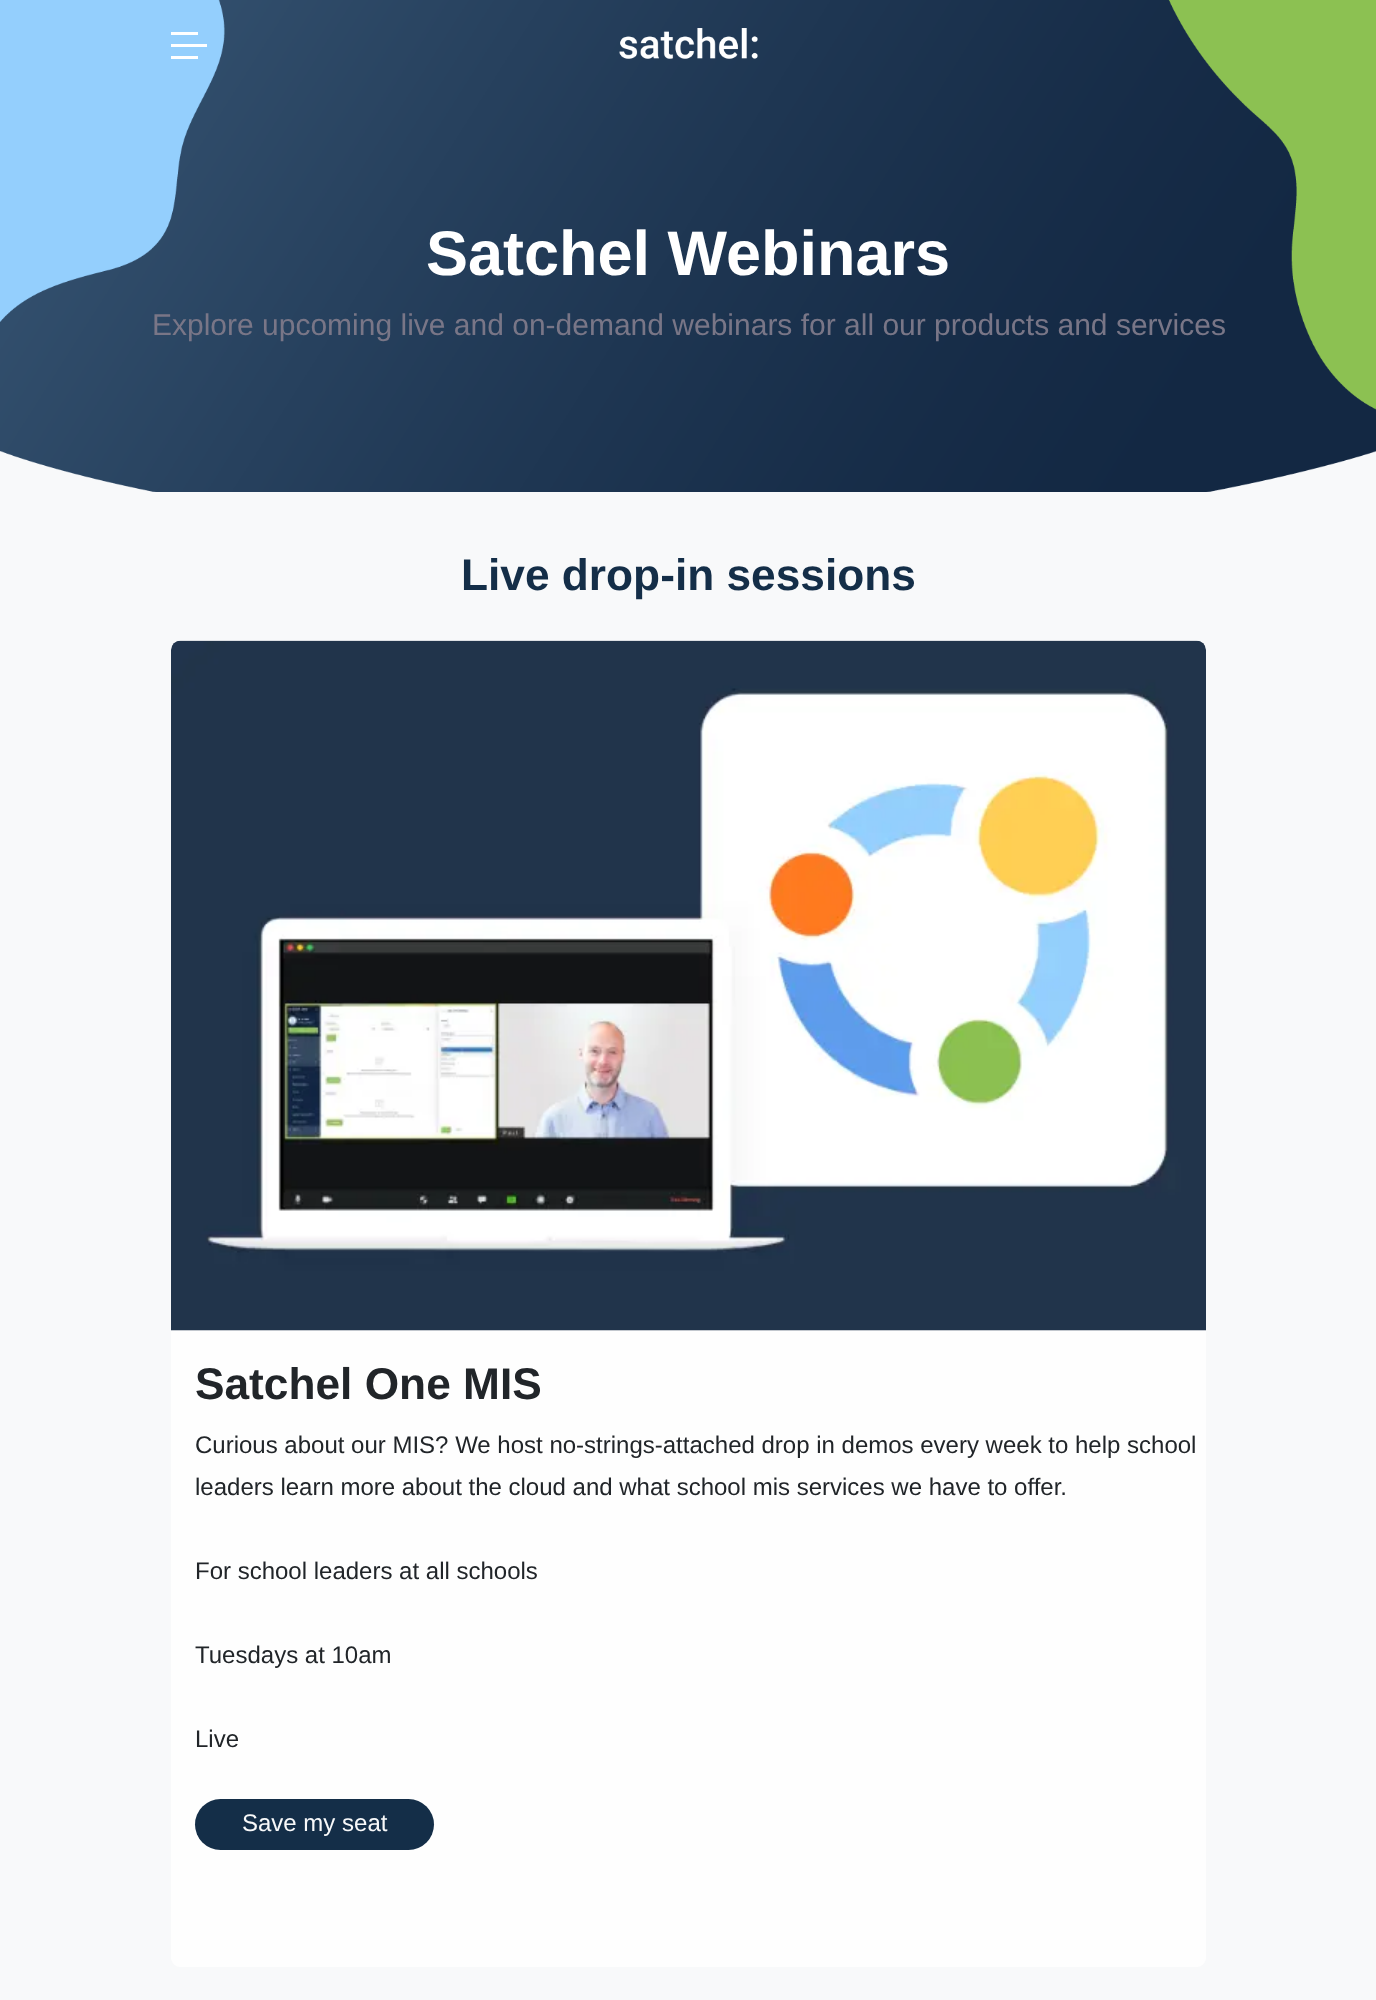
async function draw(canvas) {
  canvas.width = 1376
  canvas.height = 2000
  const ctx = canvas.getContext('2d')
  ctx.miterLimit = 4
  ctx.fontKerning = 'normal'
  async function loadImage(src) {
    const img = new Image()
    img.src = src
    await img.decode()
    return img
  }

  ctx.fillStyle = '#f8f9fa'
  ctx.fillRect(0, 0, 1376, 2000)
  ctx.drawImage(await loadImage('image1.png'), 0, 0, 1376, 492)
  ctx.fillStyle = '#fff'
  ctx.fillRect(171, 32, 27, 3)
  ctx.fillRect(171, 44, 36, 3)
  ctx.fillRect(171, 56, 27, 3)
  ctx.drawImage(await loadImage('image0.png'), 619, 28, 139, 31)
  ctx.font = 'bold 63px Liberation Sans'
  ctx.fillText('Satchel Webinars', 426, 275)
  ctx.font = '30px Liberation Sans'
  ctx.fillStyle = '#797687'
  ctx.fillText('Explore upcoming live and on-demand webinars for all our products and services', 152, 335)
  ctx.font = 'bold 44.25px Liberation Sans'
  ctx.fillStyle = '#142e48'
  ctx.fillText('Live drop-in sessions', 461, 590)
  ctx.drawImage(await loadImage('image2.png'), 171, 640, 1035, 691)
  ctx.fillStyle = '#fefefe'
  ctx.beginPath()
  ctx.roundRect(171, 1331, 1035, 636, [0, 0, 9, 9])
  ctx.fill()
  ctx.fillStyle = '#212529'
  ctx.fillText('Satchel One MIS', 195, 1399)
  ctx.font = '24px Liberation Sans'
  ctx.fillText('Curious about our MIS? We host no-strings-attached drop in demos every week to help school', 195, 1453)
  ctx.fillText('leaders learn more about the cloud and what school mis services we have to offer.', 195, 1495)
  ctx.fillText('For school leaders at all schools', 195, 1579)
  ctx.fillText('Tuesdays at 10am', 195, 1663)
  ctx.fillText('Live', 195, 1747)
  ctx.fillStyle = '#142e48'
  ctx.beginPath()
  ctx.roundRect(195, 1799, 239, 51, 25.5)
  ctx.fill()
  ctx.fillStyle = '#f8f9fa'
  ctx.fillText('Save my seat', 242, 1831)
}

draw(document.querySelector('canvas'))
